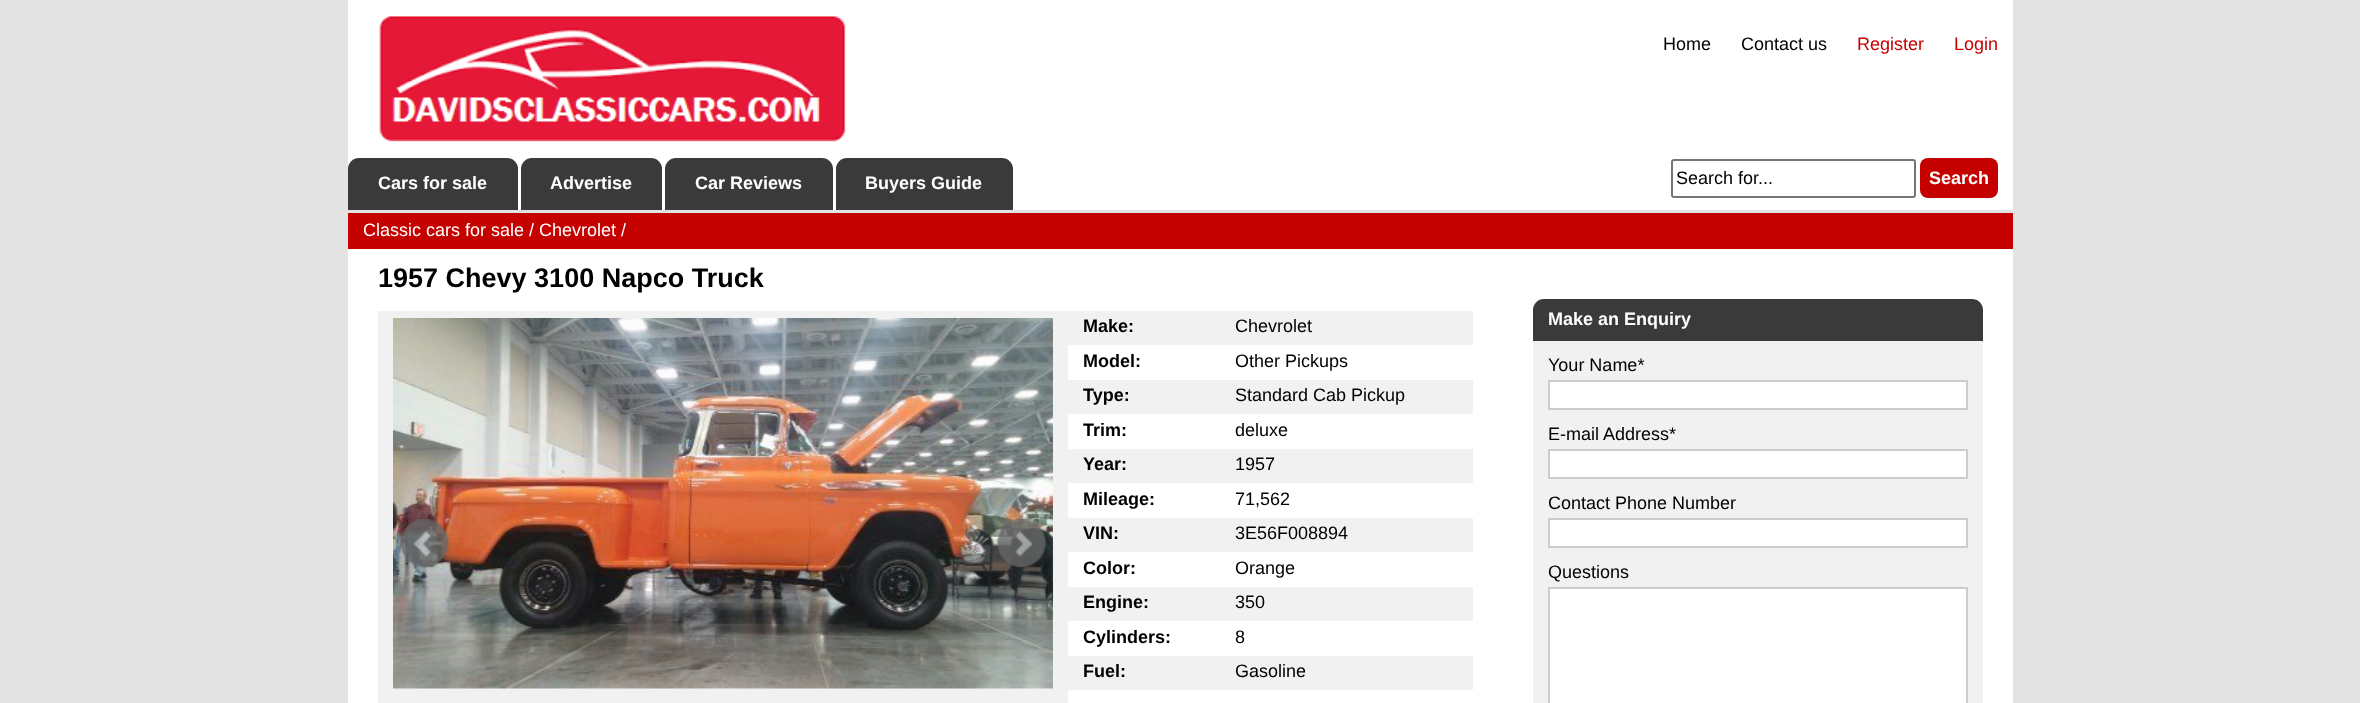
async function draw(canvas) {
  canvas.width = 2360
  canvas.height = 703
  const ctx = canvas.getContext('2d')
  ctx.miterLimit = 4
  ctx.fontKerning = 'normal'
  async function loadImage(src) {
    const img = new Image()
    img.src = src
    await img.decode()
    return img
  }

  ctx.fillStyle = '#e3e3e3'
  ctx.fillRect(0, 0, 2360, 703)
  ctx.fillStyle = '#fff'
  ctx.fillRect(348, 0, 1665, 210)
  ctx.drawImage(await loadImage('image0.png'), 379, 16, 467, 126)
  ctx.font = '18px Liberation Sans'
  ctx.fillStyle = '#000'
  ctx.fillText('Home', 1663, 50)
  ctx.fillText('Contact us', 1741, 50)
  ctx.fillStyle = '#c50100'
  ctx.fillText('Register', 1857, 50)
  ctx.fillText('Login', 1954, 50)
  ctx.fillStyle = '#3a3a3a'
  ctx.beginPath()
  ctx.roundRect(348, 158, 170, 52, [11, 11, 0, 0])
  ctx.fill()
  ctx.font = 'bold 18px Liberation Sans'
  ctx.fillStyle = '#fff'
  ctx.fillText('Cars for sale', 378, 189)
  ctx.fillStyle = '#3a3a3a'
  ctx.beginPath()
  ctx.roundRect(521, 158, 141, 52, [11, 11, 0, 0])
  ctx.fill()
  ctx.fillStyle = '#fff'
  ctx.fillText('Advertise', 550, 189)
  ctx.fillStyle = '#3a3a3a'
  ctx.beginPath()
  ctx.roundRect(665, 158, 168, 52, [11, 11, 0, 0])
  ctx.fill()
  ctx.fillStyle = '#fff'
  ctx.fillText('Car Reviews', 695, 189)
  ctx.fillStyle = '#3a3a3a'
  ctx.beginPath()
  ctx.roundRect(836, 158, 177, 52, [11, 11, 0, 0])
  ctx.fill()
  ctx.fillStyle = '#fff'
  ctx.fillText('Buyers Guide', 865, 189)
  ctx.beginPath()
  ctx.roundRect(1672, 160, 243, 37, 2)
  ctx.strokeStyle = '#767676'
  ctx.lineWidth = 2
  ctx.stroke()
  ctx.font = '18px Liberation Sans'
  ctx.fillStyle = '#000'
  ctx.fillText('Search for...', 1676, 184)
  ctx.fillStyle = '#c50100'
  ctx.beginPath()
  ctx.roundRect(1920, 158, 78, 40, 8)
  ctx.fill()
  ctx.font = 'bold 18px Liberation Sans'
  ctx.fillStyle = '#fff'
  ctx.fillText('Search', 1929, 184)
  ctx.fillRect(348, 249, 1665, 454)
  ctx.fillStyle = '#c50100'
  ctx.fillRect(348, 213, 1665, 36)
  ctx.font = '18px Liberation Sans'
  ctx.fillStyle = '#fff'
  ctx.fillText('Classic cars for sale / Chevrolet /', 363, 236)
  ctx.font = 'bold 27px Liberation Sans'
  ctx.fillStyle = '#000'
  ctx.fillText('1957 Chevy 3100 Napco Truck', 378, 287)
  ctx.fillStyle = '#f1f1f1'
  ctx.fillRect(378, 311, 690, 392)
  ctx.drawImage(await loadImage('image1.png'), 393, 318, 660, 371)
  ctx.drawImage(await loadImage('image2.png'), 400, 519, 49, 48)
  ctx.drawImage(await loadImage('image3.png'), 997, 519, 49, 48)
  ctx.fillRect(1068, 311, 405, 34)
  ctx.font = 'bold 18px Liberation Sans'
  ctx.fillStyle = '#000'
  ctx.fillText('Make:', 1083, 332)
  ctx.font = '18px Liberation Sans'
  ctx.fillText('Chevrolet', 1235, 332)
  ctx.font = 'bold 18px Liberation Sans'
  ctx.fillText('Model:', 1083, 367)
  ctx.font = '18px Liberation Sans'
  ctx.fillText('Other Pickups', 1235, 367)
  ctx.fillStyle = '#f1f1f1'
  ctx.fillRect(1068, 380, 405, 34)
  ctx.font = 'bold 18px Liberation Sans'
  ctx.fillStyle = '#000'
  ctx.fillText('Type:', 1083, 401)
  ctx.font = '18px Liberation Sans'
  ctx.fillText('Standard Cab Pickup', 1235, 401)
  ctx.font = 'bold 18px Liberation Sans'
  ctx.fillText('Trim:', 1083, 436)
  ctx.font = '18px Liberation Sans'
  ctx.fillText('deluxe', 1235, 436)
  ctx.fillStyle = '#f1f1f1'
  ctx.fillRect(1068, 449, 405, 34)
  ctx.font = 'bold 18px Liberation Sans'
  ctx.fillStyle = '#000'
  ctx.fillText('Year:', 1083, 470)
  ctx.font = '18px Liberation Sans'
  ctx.fillText('1957', 1235, 470)
  ctx.font = 'bold 18px Liberation Sans'
  ctx.fillText('Mileage:', 1083, 505)
  ctx.font = '18px Liberation Sans'
  ctx.fillText('71,562', 1235, 505)
  ctx.fillStyle = '#f1f1f1'
  ctx.fillRect(1068, 518, 405, 34)
  ctx.font = 'bold 18px Liberation Sans'
  ctx.fillStyle = '#000'
  ctx.fillText('VIN:', 1083, 539)
  ctx.font = '18px Liberation Sans'
  ctx.fillText('3E56F008894', 1235, 539)
  ctx.font = 'bold 18px Liberation Sans'
  ctx.fillText('Color:', 1083, 574)
  ctx.font = '18px Liberation Sans'
  ctx.fillText('Orange', 1235, 574)
  ctx.fillStyle = '#f1f1f1'
  ctx.fillRect(1068, 587, 405, 34)
  ctx.font = 'bold 18px Liberation Sans'
  ctx.fillStyle = '#000'
  ctx.fillText('Engine:', 1083, 608)
  ctx.font = '18px Liberation Sans'
  ctx.fillText('350', 1235, 608)
  ctx.font = 'bold 18px Liberation Sans'
  ctx.fillText('Cylinders:', 1083, 643)
  ctx.font = '18px Liberation Sans'
  ctx.fillText('8', 1235, 643)
  ctx.fillStyle = '#f1f1f1'
  ctx.fillRect(1068, 656, 405, 34)
  ctx.font = 'bold 18px Liberation Sans'
  ctx.fillStyle = '#000'
  ctx.fillText('Fuel:', 1083, 677)
  ctx.font = '18px Liberation Sans'
  ctx.fillText('Gasoline', 1235, 677)
  ctx.fillStyle = '#3a3a3a'
  ctx.beginPath()
  ctx.roundRect(1533, 299, 450, 42, [11, 11, 0, 0])
  ctx.fill()
  ctx.font = 'bold 18px Liberation Sans'
  ctx.fillStyle = '#fff'
  ctx.fillText('Make an Enquiry', 1548, 325)
  ctx.fillStyle = '#f1f1f1'
  ctx.fillRect(1533, 341, 450, 362)
  ctx.font = '18px Liberation Sans'
  ctx.fillStyle = '#000'
  ctx.fillText('Your Name*', 1548, 371)
  ctx.fillStyle = '#fff'
  ctx.beginPath()
  ctx.rect(1549, 381, 418, 28)
  ctx.fill()
  ctx.strokeStyle = '#ccc'
  ctx.stroke()
  ctx.fillStyle = '#000'
  ctx.fillText('E-mail Address*', 1548, 440)
  ctx.fillStyle = '#fff'
  ctx.beginPath()
  ctx.rect(1549, 450, 418, 28)
  ctx.fill()
  ctx.stroke()
  ctx.fillStyle = '#000'
  ctx.fillText('Contact Phone Number', 1548, 509)
  ctx.fillStyle = '#fff'
  ctx.beginPath()
  ctx.rect(1549, 519, 418, 28)
  ctx.fill()
  ctx.stroke()
  ctx.fillStyle = '#000'
  ctx.fillText('Questions', 1548, 578)
  ctx.fillStyle = '#fff'
  ctx.beginPath()
  ctx.rect(1549, 588, 418, 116)
  ctx.fill()
  ctx.stroke()
}

draw(document.querySelector('canvas'))
